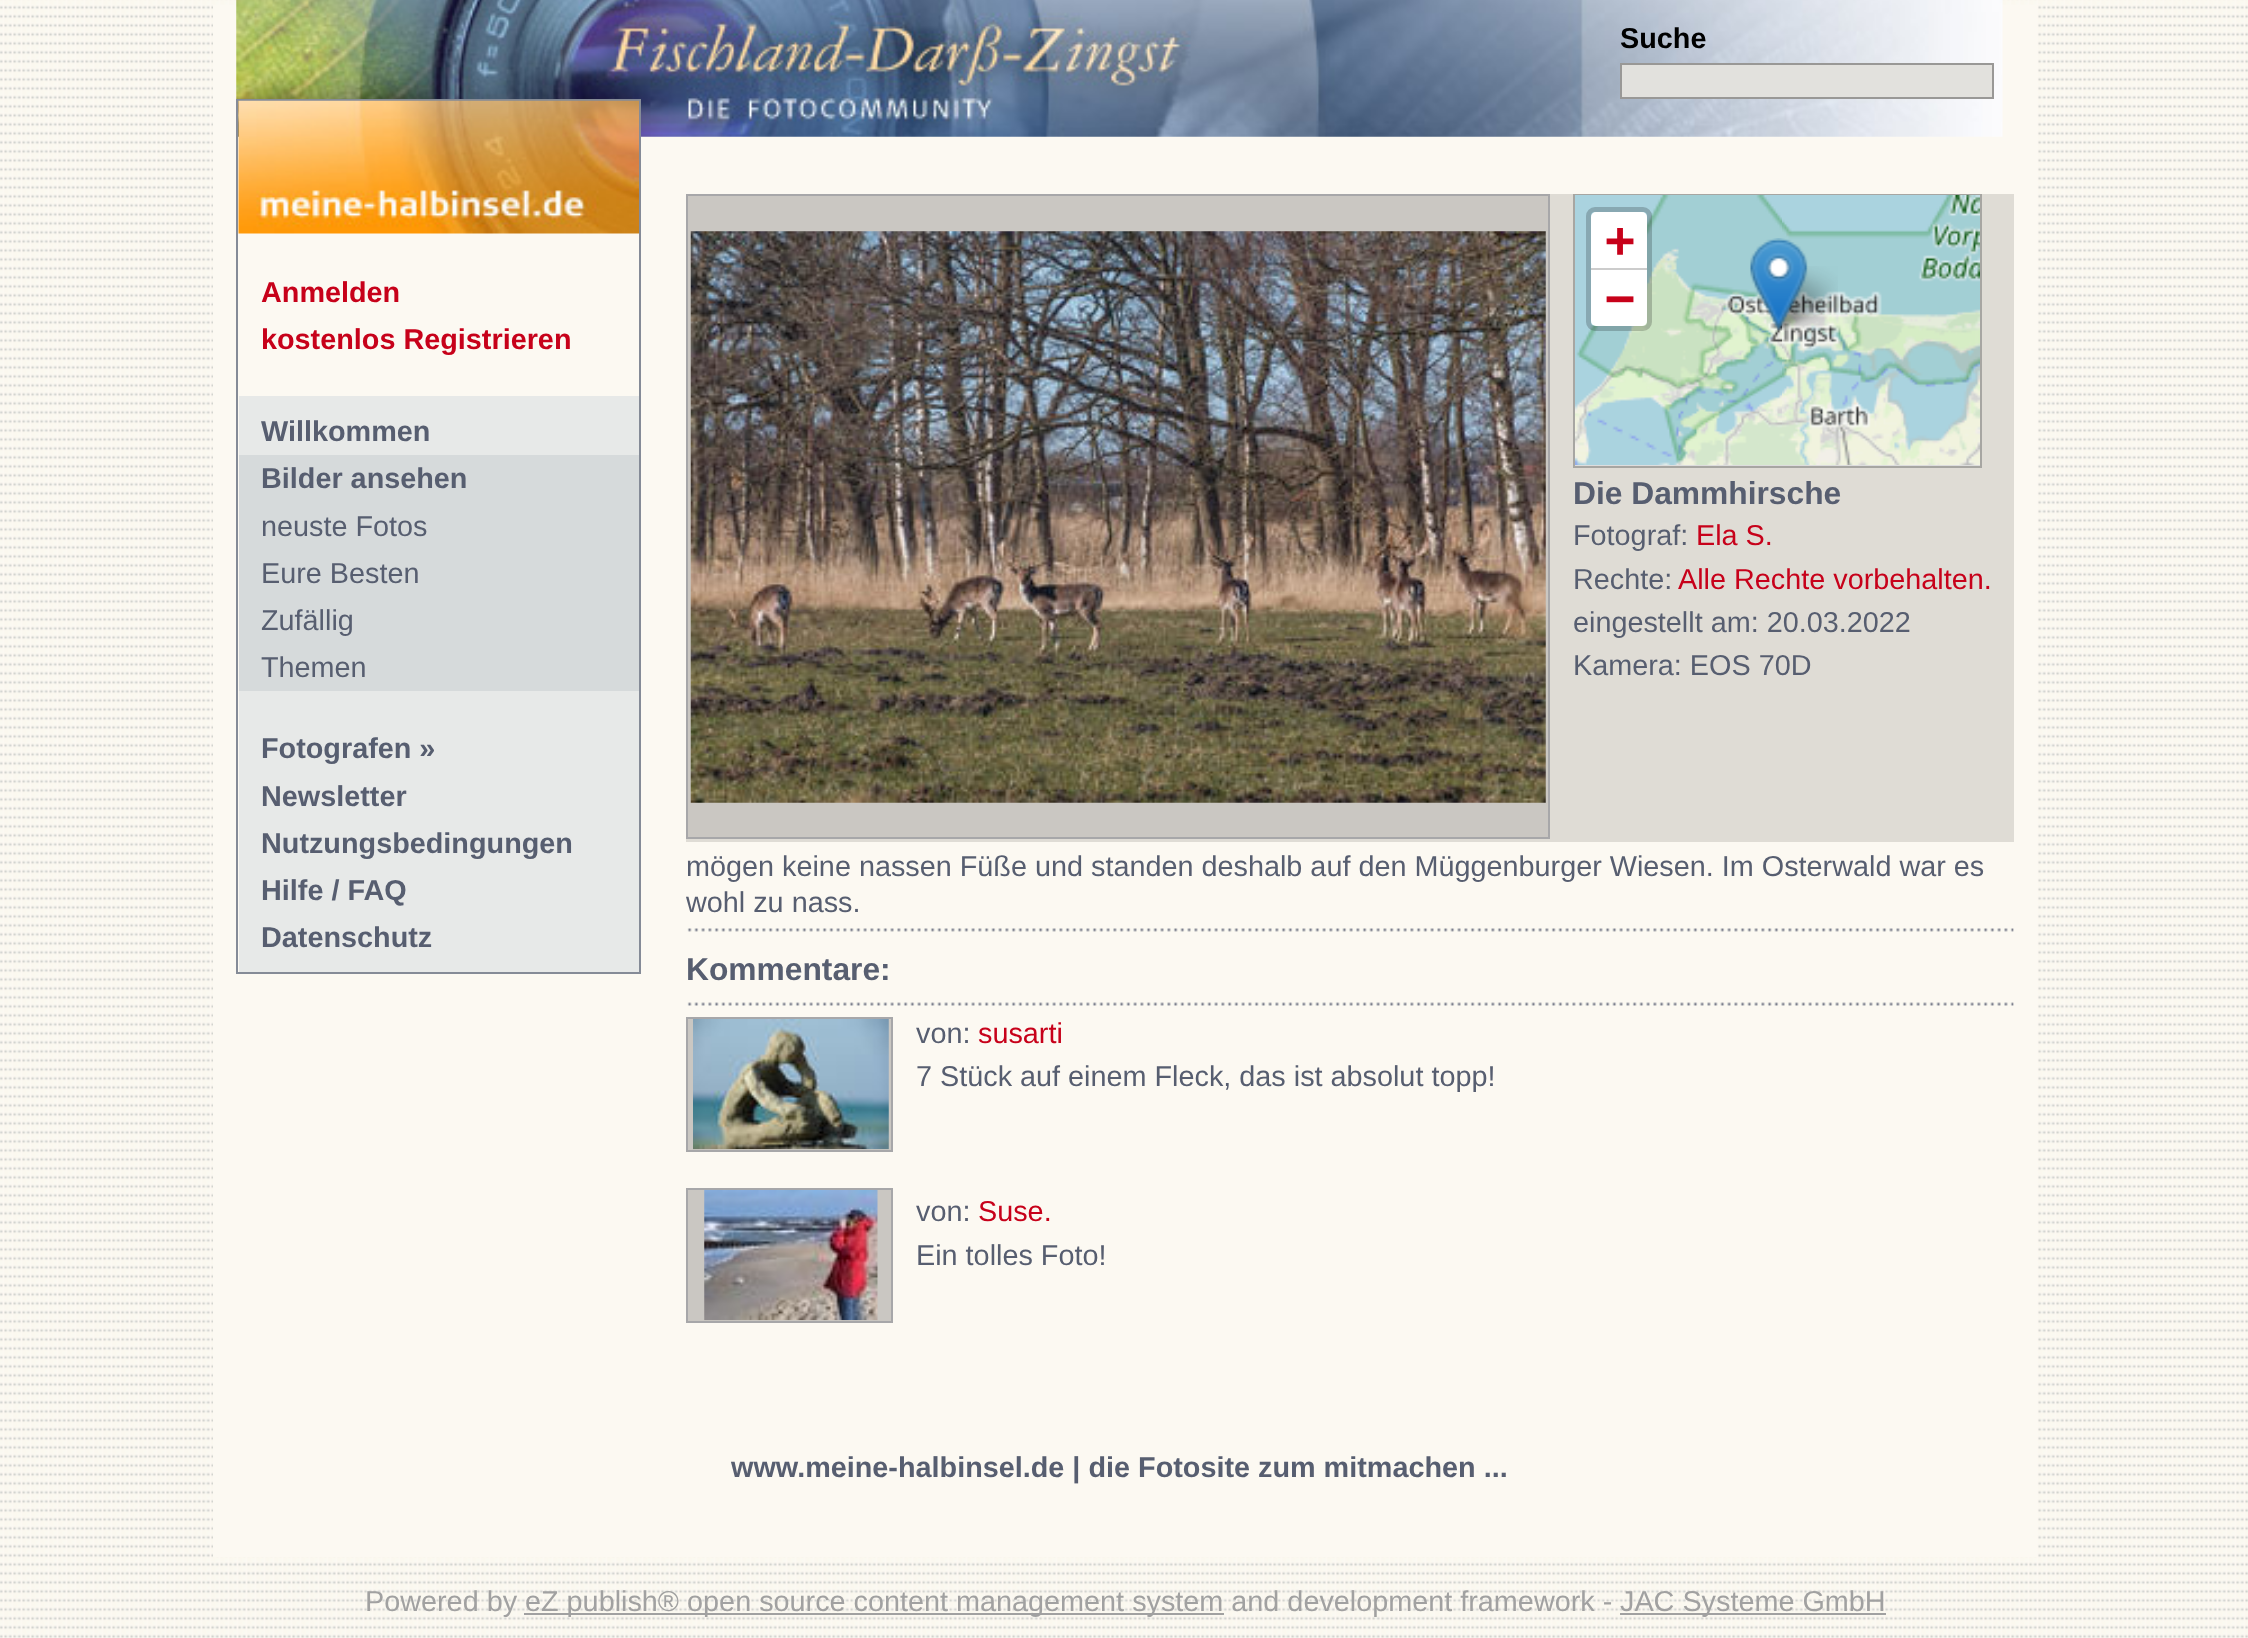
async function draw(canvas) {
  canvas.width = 2248
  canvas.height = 1638
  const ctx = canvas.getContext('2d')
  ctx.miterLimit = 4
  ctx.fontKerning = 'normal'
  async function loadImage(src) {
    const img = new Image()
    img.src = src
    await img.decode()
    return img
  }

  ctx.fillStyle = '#fff'
  ctx.fillRect(0, 0, 2248, 1638)
  ctx.drawImage(await loadImage('image0.png'), 0, 0, 2248, 1638)
  ctx.fillStyle = '#fcf9f2'
  ctx.fillRect(213, 5, 1824, 1552)
  ctx.drawImage(await loadImage('image1.png'), 236, 0, 1767, 137)
  ctx.font = 'bold 28.8px Liberation Sans'
  ctx.fillStyle = '#000'
  ctx.fillText('Suche', 1620, 48)
  ctx.fillStyle = '#e2e1dd'
  ctx.beginPath()
  ctx.rect(1621, 64, 372, 34)
  ctx.fill()
  ctx.strokeStyle = '#999896'
  ctx.lineWidth = 2
  ctx.stroke()
  ctx.strokeStyle = '#858b97'
  ctx.strokeRect(237, 100, 403, 873)
  ctx.drawImage(await loadImage('image2.png'), 238, 100, 401, 134)
  ctx.fillStyle = '#c7011a'
  ctx.fillText('Anmelden', 261, 302)
  ctx.fillText('kostenlos Registrieren', 261, 349)
  ctx.fillStyle = '#e7e9e8'
  ctx.fillRect(239, 396, 400, 576)
  ctx.fillStyle = '#575e70'
  ctx.fillText('Willkommen', 261, 441)
  ctx.fillStyle = '#d6dadb'
  ctx.fillRect(239, 455, 400, 236)
  ctx.fillStyle = '#575e70'
  ctx.fillText('Bilder ansehen', 261, 488)
  ctx.font = '28.8px Liberation Sans'
  ctx.fillText('neuste Fotos', 261, 536)
  ctx.fillText('Eure Besten', 261, 583)
  ctx.fillText('Zufällig', 261, 630)
  ctx.fillText('Themen', 261, 677)
  ctx.font = 'bold 28.8px Liberation Sans'
  ctx.fillText('Fotografen »', 261, 758)
  ctx.fillText('Newsletter', 261, 806)
  ctx.fillText('Nutzungsbedingungen', 261, 853)
  ctx.fillText('Hilfe / FAQ', 261, 900)
  ctx.fillText('Datenschutz', 261, 947)
  ctx.fillStyle = '#dfdcd5'
  ctx.fillRect(686, 194, 1328, 648)
  ctx.fillStyle = '#cac7c2'
  ctx.beginPath()
  ctx.rect(687, 195, 862, 643)
  ctx.fill()
  ctx.strokeStyle = '#a7a7a9'
  ctx.stroke()
  ctx.drawImage(await loadImage('image3.png'), 690, 231, 856, 572)
  ctx.fillStyle = '#ddd'
  ctx.fillRect(1575, 465, 405, 1)
  ctx.strokeStyle = '#a7a6a2'
  ctx.strokeRect(1574, 195, 407, 272)
  ctx.drawImage(await loadImage('image4.png'), 1575, 195, 207, 270)
  ctx.drawImage(await loadImage('image5.png'), 1782, 195, 198, 270)
  ctx.drawImage(await loadImage('image7.png'), 1771, 266, 67, 65)
  ctx.drawImage(await loadImage('image6.png'), 1750, 238, 58, 93)
  ctx.beginPath()
  ctx.roundRect(1588.5, 209.5, 61, 119, 6.5)
  ctx.strokeStyle = '#00000033'
  ctx.lineWidth = 5
  ctx.stroke()
  ctx.fillStyle = '#fff'
  ctx.beginPath()
  ctx.roundRect(1591, 212, 56, 58, [5, 5, 0, 0])
  ctx.fill()
  ctx.fillStyle = '#ccc'
  ctx.fillRect(1591, 268, 56, 2)
  ctx.font = 'bold 50px DejaVu Sans Mono'
  ctx.fillStyle = '#c7011a'
  ctx.fillText('+', 1605, 257)
  ctx.fillStyle = '#fff'
  ctx.beginPath()
  ctx.roundRect(1591, 270, 56, 56, [0, 0, 5, 5])
  ctx.fill()
  ctx.fillStyle = '#c7011a'
  ctx.fillText('−', 1605, 315)
  ctx.font = 'bold 31.75px Liberation Sans'
  ctx.fillStyle = '#575e70'
  ctx.fillText('Die Dammhirsche', 1573, 504)
  ctx.font = '28.8px Liberation Sans'
  ctx.fillText('Fotograf:', 1573, 545)
  ctx.fillStyle = '#c7011a'
  ctx.fillText('Ela S.', 1696, 545)
  ctx.fillStyle = '#575e70'
  ctx.fillText('Rechte:', 1573, 589)
  ctx.fillStyle = '#c7011a'
  ctx.fillText('Alle Rechte vorbehalten.', 1678, 589)
  ctx.fillStyle = '#575e70'
  ctx.fillText('eingestellt am: 20.03.2022', 1573, 632)
  ctx.fillText('Kamera: EOS 70D', 1573, 675)
  ctx.fillText('mögen keine nassen Füße und standen deshalb auf den Müggenburger Wiesen. Im Osterwald war es', 686, 876)
  ctx.fillText('wohl zu nass.', 686, 912)
  ctx.drawImage(await loadImage('image8.png'), 687, 928, 1327, 4)
  ctx.font = 'bold 31.75px Liberation Sans'
  ctx.fillText('Kommentare:', 686, 980)
  ctx.drawImage(await loadImage('image9.png'), 687, 1002, 1327, 4)
  ctx.fillStyle = '#cac7c2'
  ctx.beginPath()
  ctx.rect(687, 1018, 205, 133)
  ctx.fill()
  ctx.strokeStyle = '#a7a7a9'
  ctx.lineWidth = 2
  ctx.stroke()
  ctx.drawImage(await loadImage('image10.png'), 693, 1019, 196, 131)
  ctx.font = '28.8px Liberation Sans'
  ctx.fillStyle = '#575e70'
  ctx.fillText('von:', 916, 1043)
  ctx.fillStyle = '#c7011a'
  ctx.fillText('susarti', 978, 1043)
  ctx.fillStyle = '#575e70'
  ctx.fillText('7 Stück auf einem Fleck, das ist absolut topp!', 916, 1086)
  ctx.fillStyle = '#cac7c2'
  ctx.beginPath()
  ctx.rect(687, 1189, 205, 133)
  ctx.fill()
  ctx.stroke()
  ctx.drawImage(await loadImage('image11.png'), 704, 1189, 174, 132)
  ctx.fillStyle = '#575e70'
  ctx.fillText('von:', 916, 1221)
  ctx.fillStyle = '#c7011a'
  ctx.fillText('Suse.', 978, 1221)
  ctx.fillStyle = '#575e70'
  ctx.fillText('Ein tolles Foto!', 916, 1265)
  ctx.font = 'bold 28.8px Liberation Sans'
  ctx.fillText('www.meine-halbinsel.de | die Fotosite zum mitmachen ...', 731, 1477)
  ctx.font = '28.8px Liberation Sans'
  ctx.fillStyle = '#a1a1a1'
  ctx.fillText('Powered by', 365, 1611)
  ctx.fillRect(524, 1613, 700, 2)
  ctx.fillText('eZ publish® open source content management system and development framework -', 525, 1611)
  ctx.fillRect(1620, 1613, 266, 2)
  ctx.fillText('JAC Systeme GmbH', 1620, 1611)
}

draw(document.querySelector('canvas'))
